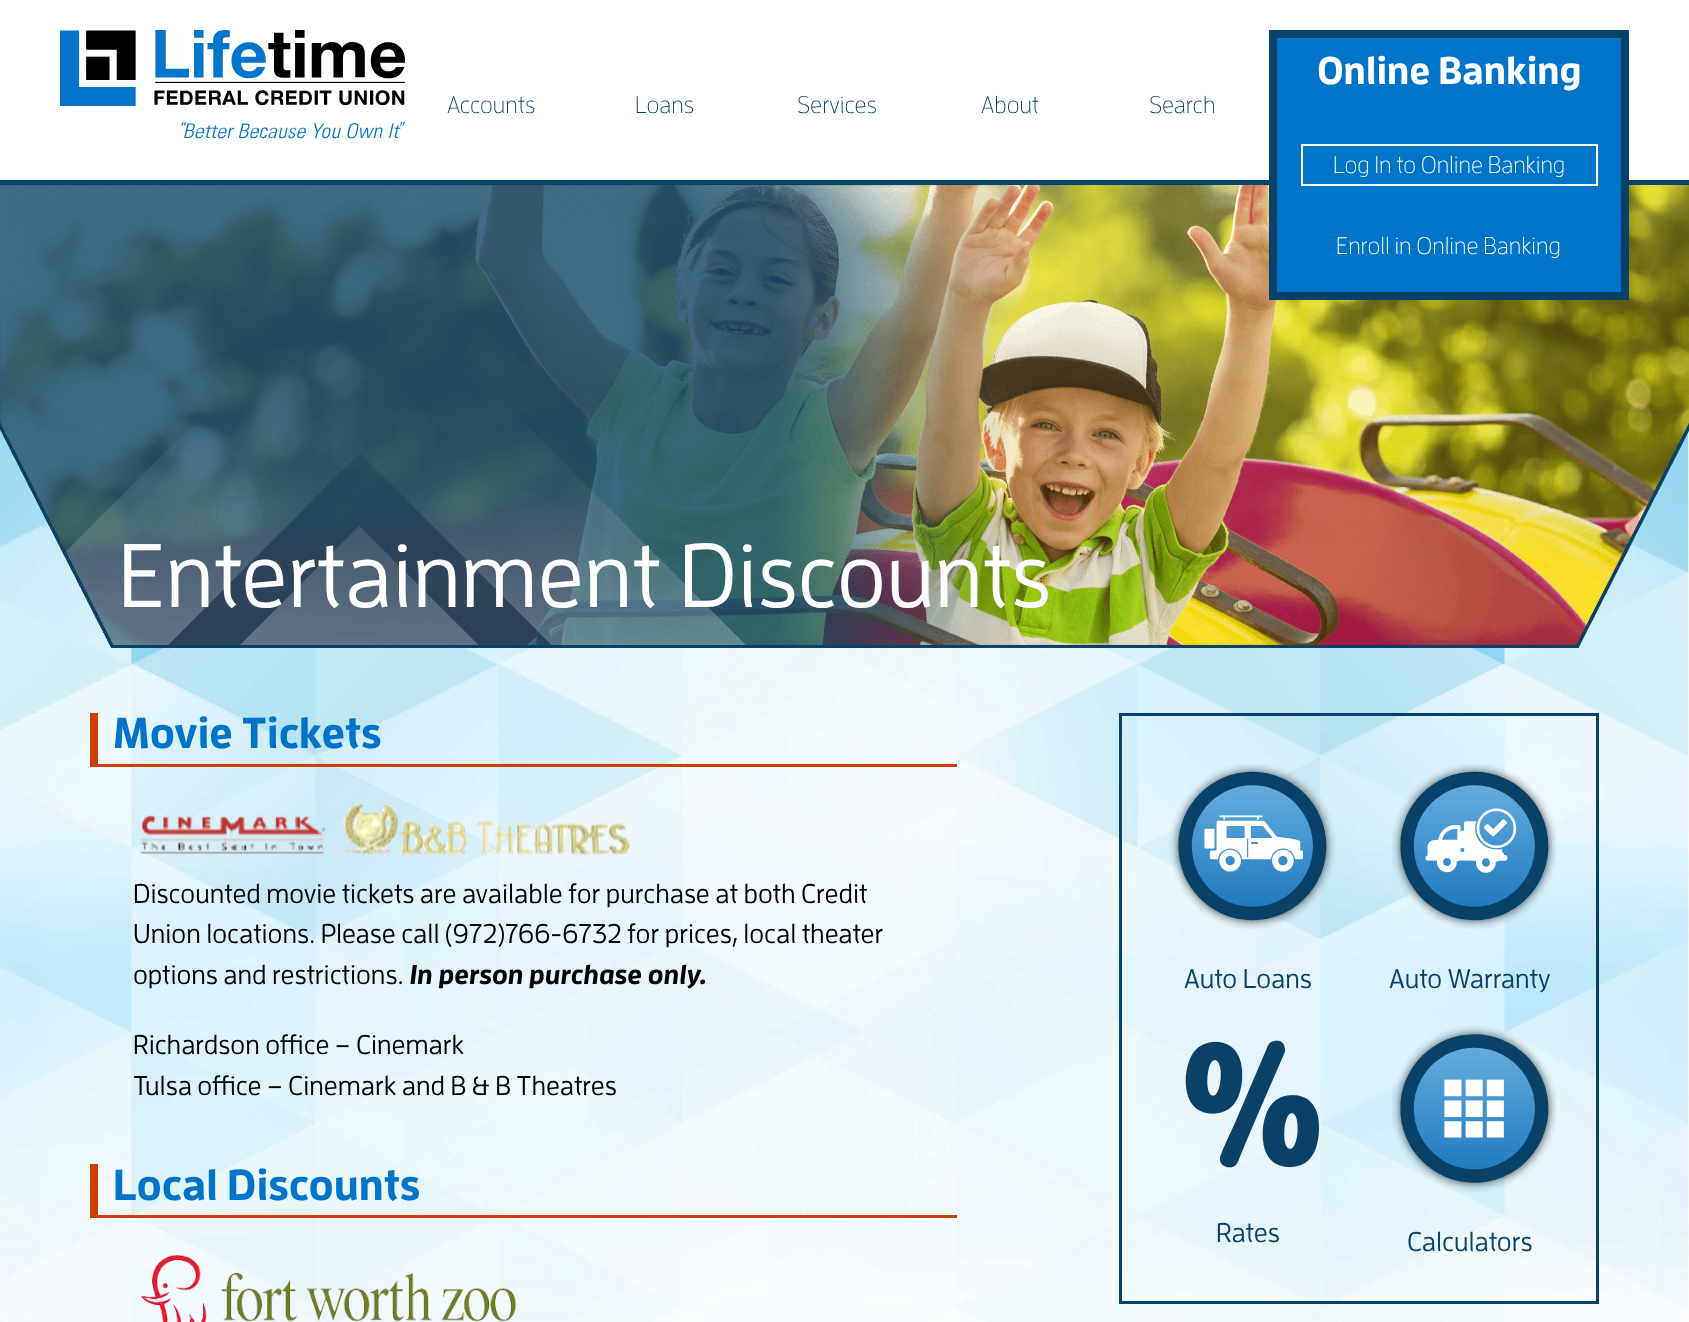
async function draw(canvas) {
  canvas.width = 1689
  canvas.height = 1322
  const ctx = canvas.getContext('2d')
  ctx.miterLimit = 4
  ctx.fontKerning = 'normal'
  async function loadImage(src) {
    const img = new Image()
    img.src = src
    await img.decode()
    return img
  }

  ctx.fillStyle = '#fff'
  ctx.fillRect(0, 0, 1689, 1322)
  ctx.drawImage(await loadImage('image0.png'), 0, 206, 1689, 1116)
  ctx.fillStyle = '#0a4168'
  ctx.fillRect(0, 180, 1689, 5)
  ctx.drawImage(await loadImage('image1.png'), 60, 30, 345, 109)
  ctx.font = '24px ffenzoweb'
  ctx.fillText('Accounts', 447, 113)
  ctx.fillText('Loans', 635, 113)
  ctx.fillText('Services', 797, 113)
  ctx.fillText('About', 981, 113)
  ctx.fillText('Search', 1149, 113)
  ctx.drawImage(await loadImage('image2.png'), 0, 185, 1689, 463)
  ctx.fillStyle = '#0074c8'
  ctx.beginPath()
  ctx.rect(1273, 34, 352, 262)
  ctx.fill()
  ctx.strokeStyle = '#0a4168'
  ctx.lineWidth = 8
  ctx.stroke()
  ctx.font = 'bold 38.5px ffenzoweb'
  ctx.fillStyle = '#fff'
  ctx.fillText('Online Banking', 1317, 84)
  ctx.strokeStyle = '#fff'
  ctx.lineWidth = 2
  ctx.strokeRect(1302, 145, 295, 40)
  ctx.font = '24px ffenzoweb'
  ctx.fillText('Log In to Online Banking', 1333, 173)
  ctx.fillText('Enroll in Online Banking', 1336, 254)
  ctx.font = '500 90px ffenzoweb'
  ctx.fillText('Entertainment Discounts', 118, 607)
  ctx.fillStyle = '#cb3e00'
  ctx.fillRect(90, 764, 867, 3)
  ctx.fillRect(90, 713, 8, 54)
  ctx.font = 'bold 43.25px ffenzoweb'
  ctx.fillStyle = '#0074c8'
  ctx.fillText('Movie Tickets', 113, 748)
  ctx.drawImage(await loadImage('image3.png'), 139, 803, 492, 53)
  ctx.font = '500 27px ffenzoweb'
  ctx.fillStyle = '#000'
  ctx.fillText('Discounted movie tickets are available for purchase at both Credit', 133, 903)
  ctx.fillText('Union locations. Please call (972)766-6732 for prices, local theater', 133, 943)
  ctx.fillText('options and restrictions.', 133, 984)
  ctx.font = 'italic bold 27px ffenzoweb'
  ctx.fillText('In person purchase only.', 410, 984)
  ctx.font = '500 27px ffenzoweb'
  ctx.fillText('Richardson office – Cinemark', 133, 1054)
  ctx.fillText('Tulsa office – Cinemark and B & B Theatres', 133, 1095)
  ctx.fillStyle = '#cb3e00'
  ctx.fillRect(90, 1215, 867, 3)
  ctx.fillRect(90, 1164, 8, 54)
  ctx.font = 'bold 43.25px ffenzoweb'
  ctx.fillStyle = '#0074c8'
  ctx.fillText('Local Discounts', 113, 1200)
  ctx.drawImage(await loadImage('image4.png'), 140, 1255, 377, 67)
  ctx.strokeStyle = '#0a4168'
  ctx.lineWidth = 3
  ctx.strokeRect(1120.5, 714.5, 477, 588)
  ctx.drawImage(await loadImage('image5.png'), 1170, 764, 165, 165)
  ctx.font = '500 27px ffenzoweb'
  ctx.fillStyle = '#0a4168'
  ctx.fillText('Auto Loans', 1184, 988)
  ctx.drawImage(await loadImage('image6.png'), 1392, 764, 165, 165)
  ctx.fillText('Auto Warranty', 1389, 988)
  ctx.drawImage(await loadImage('image7.png'), 1185, 1040, 134, 128)
  ctx.fillText('Rates', 1216, 1242)
  ctx.drawImage(await loadImage('image8.png'), 1392, 1026, 165, 166)
  ctx.fillText('Calculators', 1407, 1251)
}

draw(document.querySelector('canvas'))
